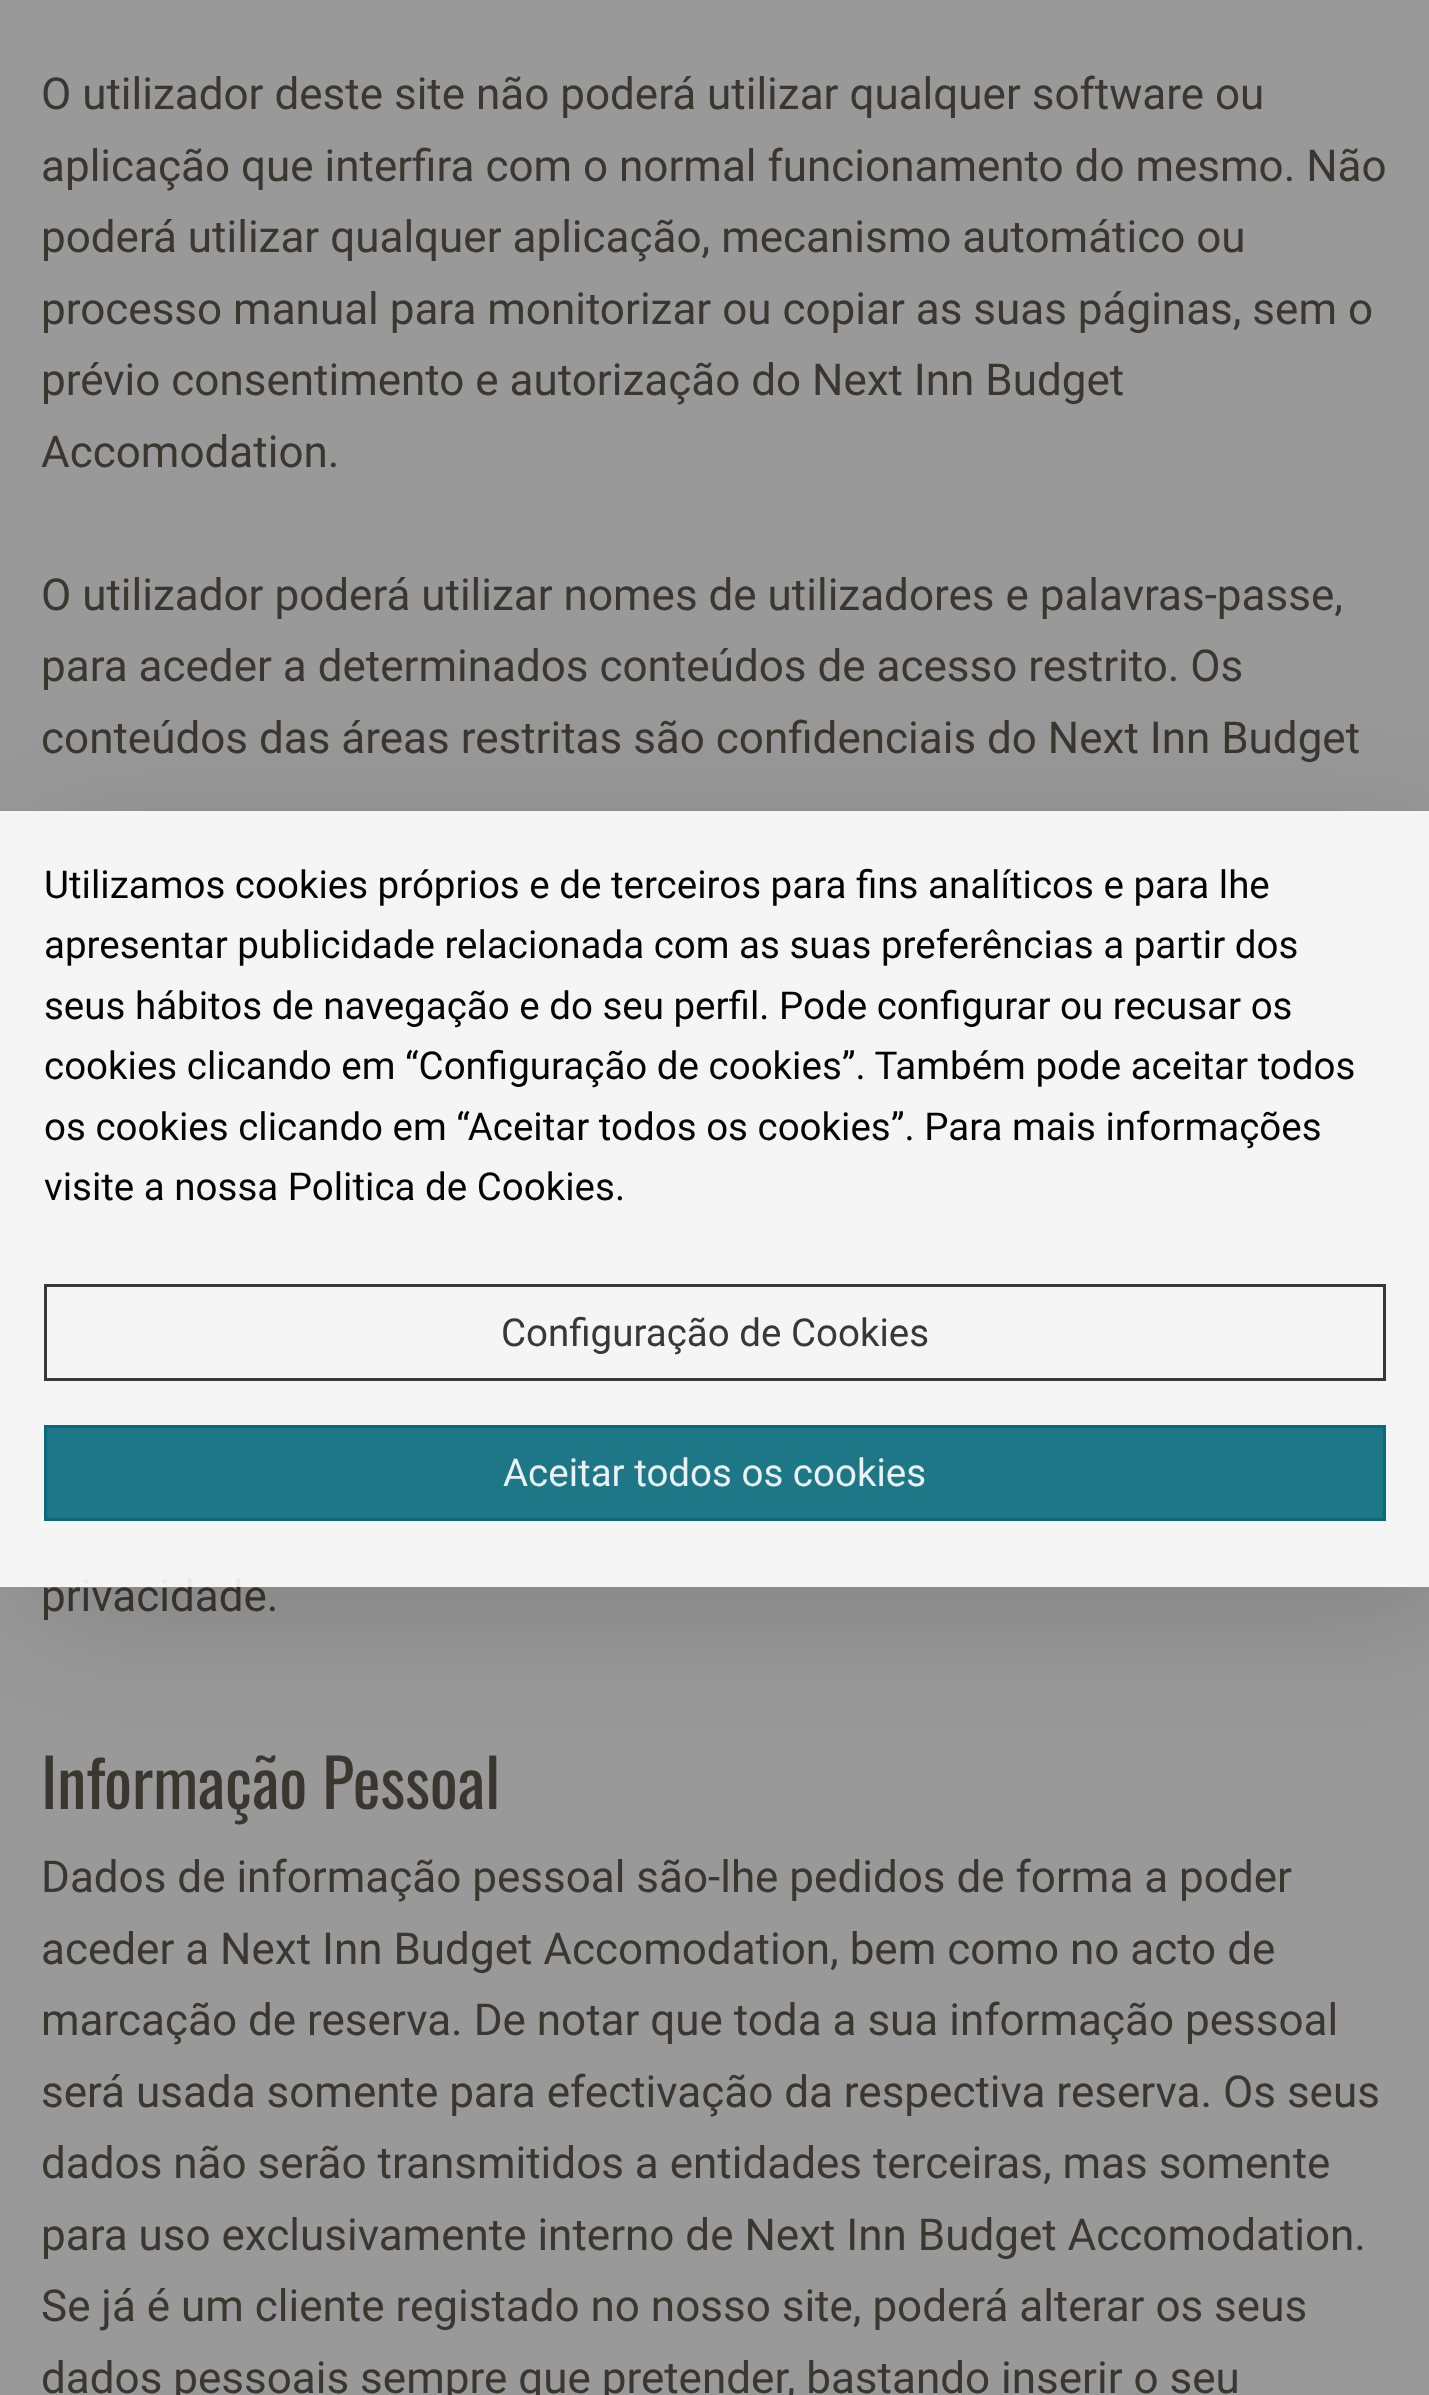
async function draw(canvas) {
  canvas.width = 1429
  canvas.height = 2395
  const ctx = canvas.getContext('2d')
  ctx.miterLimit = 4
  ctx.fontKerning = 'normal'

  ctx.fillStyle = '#999'
  ctx.fillRect(0, 0, 1429, 2395)
  ctx.font = '44px Roboto'
  ctx.fillStyle = '#383730'
  ctx.fillText('O utilizador deste site não poderá utilizar qualquer software ou', 41, 109)
  ctx.fillText('aplicação que interfira com o normal funcionamento do mesmo. Não', 41, 181)
  ctx.fillText('poderá utilizar qualquer aplicação, mecanismo automático ou', 41, 252)
  ctx.fillText('processo manual para monitorizar ou copiar as suas páginas, sem o', 41, 324)
  ctx.fillText('prévio consentimento e autorização do Next Inn Budget', 41, 395)
  ctx.fillText('Accomodation.', 41, 467)
  ctx.fillText('O utilizador poderá utilizar nomes de utilizadores e palavras-passe,', 41, 610)
  ctx.fillText('para aceder a determinados conteúdos de acesso restrito. Os', 41, 681)
  ctx.fillText('conteúdos das áreas restritas são confidenciais do Next Inn Budget', 41, 753)
  ctx.fillText('privacidade.', 41, 1611)
  ctx.font = '66px Oswald'
  ctx.fillText('Informação Pessoal', 41, 1809)
  ctx.font = '44px Roboto'
  ctx.fillText('Dados de informação pessoal são-lhe pedidos de forma a poder', 41, 1892)
  ctx.fillText('aceder a Next Inn Budget Accomodation, bem como no acto de', 41, 1964)
  ctx.fillText('marcação de reserva. De notar que toda a sua informação pessoal', 41, 2035)
  ctx.fillText('será usada somente para efectivação da respectiva reserva. Os seus', 41, 2107)
  ctx.fillText('dados não serão transmitidos a entidades terceiras, mas somente', 41, 2178)
  ctx.fillText('para uso exclusivamente interno de Next Inn Budget Accomodation.', 41, 2250)
  ctx.fillText('Se já é um cliente registado no nosso site, poderá alterar os seus', 41, 2321)
  ctx.fillText('dados pessoais sempre que pretender, bastando inserir o seu', 41, 2393)
  ctx.save()
  ctx.beginPath()
  ctx.moveTo(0, 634)
  ctx.lineTo(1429, 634)
  ctx.lineTo(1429, 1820)
  ctx.lineTo(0, 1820)
  ctx.closePath()
  ctx.moveTo(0, 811)
  ctx.lineTo(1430, 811)
  ctx.lineTo(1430, 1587)
  ctx.lineTo(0, 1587)
  ctx.closePath()
  ctx.clip('evenodd')
  ctx.fillStyle = '#00000026'
  ctx.filter = 'blur(69px)'
  ctx.beginPath()
  ctx.rect(30, 842, 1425, 770)
  ctx.fill()
  ctx.filter = 'none'
  ctx.restore()
  ctx.fillStyle = '#ffffffe6'
  ctx.fillRect(0, 811, 1429, 776)
  ctx.font = '38.5px Roboto'
  ctx.fillStyle = '#040404'
  ctx.fillText('Utilizamos cookies próprios e de terceiros para fins analíticos e para lhe', 44, 898)
  ctx.fillText('apresentar publicidade relacionada com as suas preferências a partir dos', 44, 958)
  ctx.fillText('seus hábitos de navegação e do seu perfil. Pode configurar ou recusar os', 44, 1019)
  ctx.fillText('cookies clicando em “Configuração de cookies”. Também pode aceitar todos', 44, 1079)
  ctx.fillText('os cookies clicando em “Aceitar todos os cookies”. Para mais informações', 44, 1140)
  ctx.fillText('visite a nossa Politica de Cookies.', 44, 1200)
  ctx.strokeStyle = '#232323e6'
  ctx.lineWidth = 3
  ctx.strokeRect(45.5, 1285.5, 1339, 94)
  ctx.fillStyle = '#383838'
  ctx.fillText('Configuração de Cookies', 501, 1346)
  ctx.fillStyle = '#07697be6'
  ctx.beginPath()
  ctx.rect(45.5, 1426.5, 1339, 93)
  ctx.fill()
  ctx.strokeStyle = '#096a7c'
  ctx.stroke()
  ctx.fillStyle = '#e9f1f3'
  ctx.fillText('Aceitar todos os cookies', 503, 1486)
}

draw(document.querySelector('canvas'))
